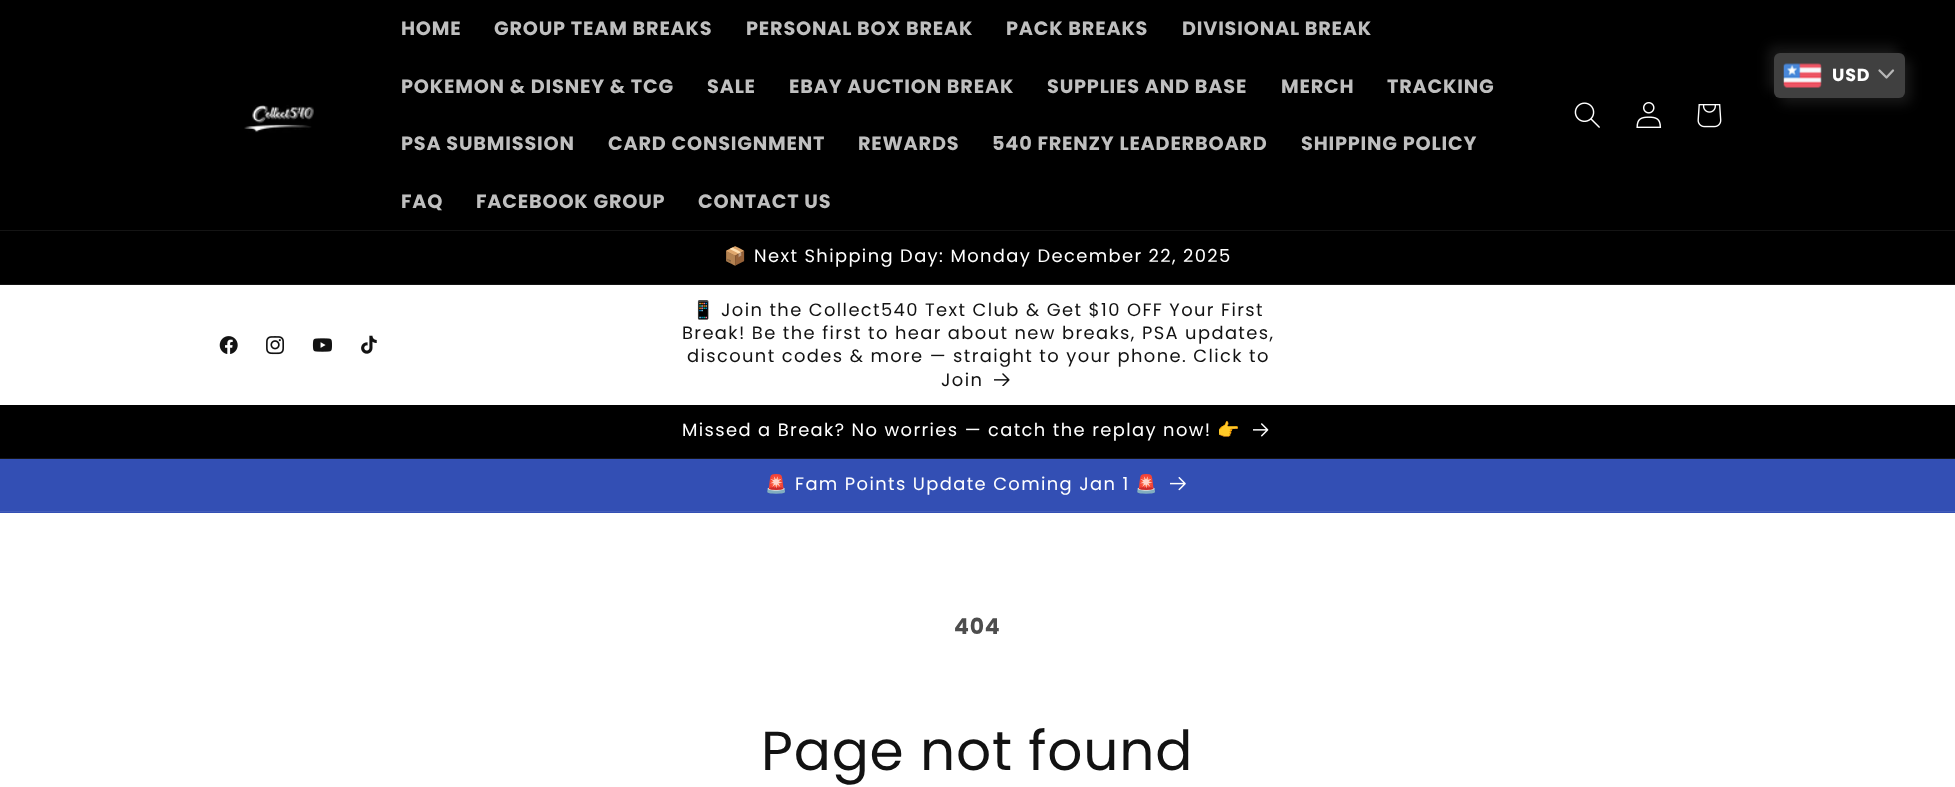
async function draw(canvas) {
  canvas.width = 1955
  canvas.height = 787
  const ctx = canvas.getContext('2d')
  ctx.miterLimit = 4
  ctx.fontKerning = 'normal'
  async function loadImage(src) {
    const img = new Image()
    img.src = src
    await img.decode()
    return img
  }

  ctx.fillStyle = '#fff'
  ctx.fillRect(0, 0, 1955, 787)
  ctx.fillStyle = '#000'
  ctx.fillRect(0, 0, 1955, 230)
  ctx.fillStyle = '#141414'
  ctx.fillRect(0, 230, 1955, 1)
  ctx.drawImage(await loadImage('image0.png'), 244, 105, 70, 28)
  ctx.letterSpacing = '0.8px'
  ctx.font = 'bold 19.25px Poppins'
  ctx.fillStyle = '#bfbfbf'
  ctx.fillText('HOME', 401, 35)
  ctx.fillText('GROUP TEAM BREAKS', 494, 35)
  ctx.fillText('PERSONAL BOX BREAK', 746, 35)
  ctx.fillText('PACK BREAKS', 1006, 35)
  ctx.fillText('DIVISIONAL BREAK', 1182, 35)
  ctx.fillText('POKEMON & DISNEY & TCG', 401, 93)
  ctx.fillText('SALE', 707, 93)
  ctx.fillText('EBAY AUCTION BREAK', 789, 93)
  ctx.fillText('SUPPLIES AND BASE', 1047, 93)
  ctx.fillText('MERCH', 1281, 93)
  ctx.fillText('TRACKING', 1387, 93)
  ctx.fillText('PSA SUBMISSION', 401, 150)
  ctx.fillText('CARD CONSIGNMENT', 608, 150)
  ctx.fillText('REWARDS', 858, 150)
  ctx.fillText('540 FRENZY LEADERBOARD', 992, 150)
  ctx.fillText('SHIPPING POLICY', 1301, 150)
  ctx.fillText('FAQ', 401, 208)
  ctx.fillText('FACEBOOK GROUP', 476, 208)
  ctx.fillText('CONTACT US', 698, 208)
  ctx.drawImage(await loadImage('image1.png'), 1574, 102, 26, 26)
  ctx.drawImage(await loadImage('image2.png'), 1636, 102, 26, 26)
  ctx.drawImage(await loadImage('image3.png'), 1697, 104, 25, 24)
  ctx.fillStyle = '#6161613d'
  ctx.filter = 'blur(6px)'
  ctx.beginPath()
  ctx.roundRect(1768, 46, 131, 45, 6)
  ctx.fill()
  ctx.filter = 'none'
  ctx.filter = 'blur(6px)'
  ctx.beginPath()
  ctx.roundRect(1780, 59, 131, 45, 6)
  ctx.fill()
  ctx.filter = 'none'
  ctx.fillStyle = '#404040'
  ctx.beginPath()
  ctx.roundRect(1774, 53, 131, 45, 6)
  ctx.fill()
  ctx.drawImage(await loadImage('image4.png'), 1783, 63, 39, 25)
  ctx.font = 'bold 17.5px Poppins'
  ctx.fillStyle = '#fff'
  ctx.fillText('USD', 1832, 81)
  ctx.beginPath()
  ctx.moveTo(1879.5, 70.5)
  ctx.lineTo(1886.5, 77.5)
  ctx.lineTo(1893, 70.5)
  ctx.strokeStyle = '#b7b7b7'
  ctx.lineWidth = 2.3
  ctx.lineCap = 'round'
  ctx.lineJoin = 'round'
  ctx.stroke()
  ctx.fillStyle = '#000'
  ctx.fillRect(0, 231, 1955, 53)
  ctx.fillStyle = '#141414'
  ctx.fillRect(0, 284, 1955, 1)
  ctx.letterSpacing = '1.38px'
  ctx.font = '17.9px Noto Color Emoji'
  ctx.fillStyle = '#fff'
  ctx.fillText('📦', 724, 262)
  ctx.font = '17.9px Poppins'
  ctx.fillText('Next Shipping Day: Monday December 22, 2025', 754, 262)
  ctx.drawImage(await loadImage('image5.png'), 219, 336, 19, 18)
  ctx.drawImage(await loadImage('image6.png'), 266, 336, 18, 19)
  ctx.drawImage(await loadImage('image7.png'), 312, 338, 20, 14)
  ctx.drawImage(await loadImage('image8.png'), 361, 335, 16, 19)
  ctx.font = '17.9px Noto Color Emoji'
  ctx.fillStyle = '#121212'
  ctx.fillText('📱', 692, 316)
  ctx.font = '17.9px Poppins'
  ctx.fillText('Join the Collect540 Text Club & Get $10 OFF Your First', 721, 316)
  ctx.fillText('Break! Be the first to hear about new breaks, PSA updates,', 682, 339)
  ctx.fillText('discount codes & more — straight to your phone. Click to', 687, 362)
  ctx.fillText('Join', 941, 386)
  ctx.drawImage(await loadImage('image9.png'), 994, 373, 16, 13)
  ctx.fillStyle = '#000'
  ctx.fillRect(0, 405, 1955, 53)
  ctx.fillStyle = '#141414'
  ctx.fillRect(0, 458, 1955, 1)
  ctx.fillStyle = '#fff'
  ctx.fillText('Missed a Break? No worries — catch the replay now!', 682, 436)
  ctx.font = '17.9px Noto Color Emoji'
  ctx.fillText('👉', 1217, 436)
  ctx.drawImage(await loadImage('image10.png'), 1253, 423, 16, 14)
  ctx.fillStyle = '#334fb4'
  ctx.fillRect(0, 459, 1955, 54)
  ctx.fillStyle = '#435dba'
  ctx.fillRect(0, 511, 1955, 1)
  ctx.fillStyle = '#fff'
  ctx.fillText('🚨', 765, 490)
  ctx.font = '17.9px Poppins'
  ctx.fillText('Fam Points Update Coming Jan 1', 795, 490)
  ctx.font = '17.9px Noto Color Emoji'
  ctx.fillText('🚨', 1135, 490)
  ctx.drawImage(await loadImage('image11.png'), 1170, 477, 16, 14)
  ctx.letterSpacing = '0.8px'
  ctx.font = 'bold 22px Poppins'
  ctx.fillStyle = '#4d4d4d'
  ctx.fillText('404', 954, 634)
  ctx.font = '55px Poppins'
  ctx.fillStyle = '#121212'
  ctx.fillText('Page not found', 761, 770)
}

draw(document.querySelector('canvas'))
